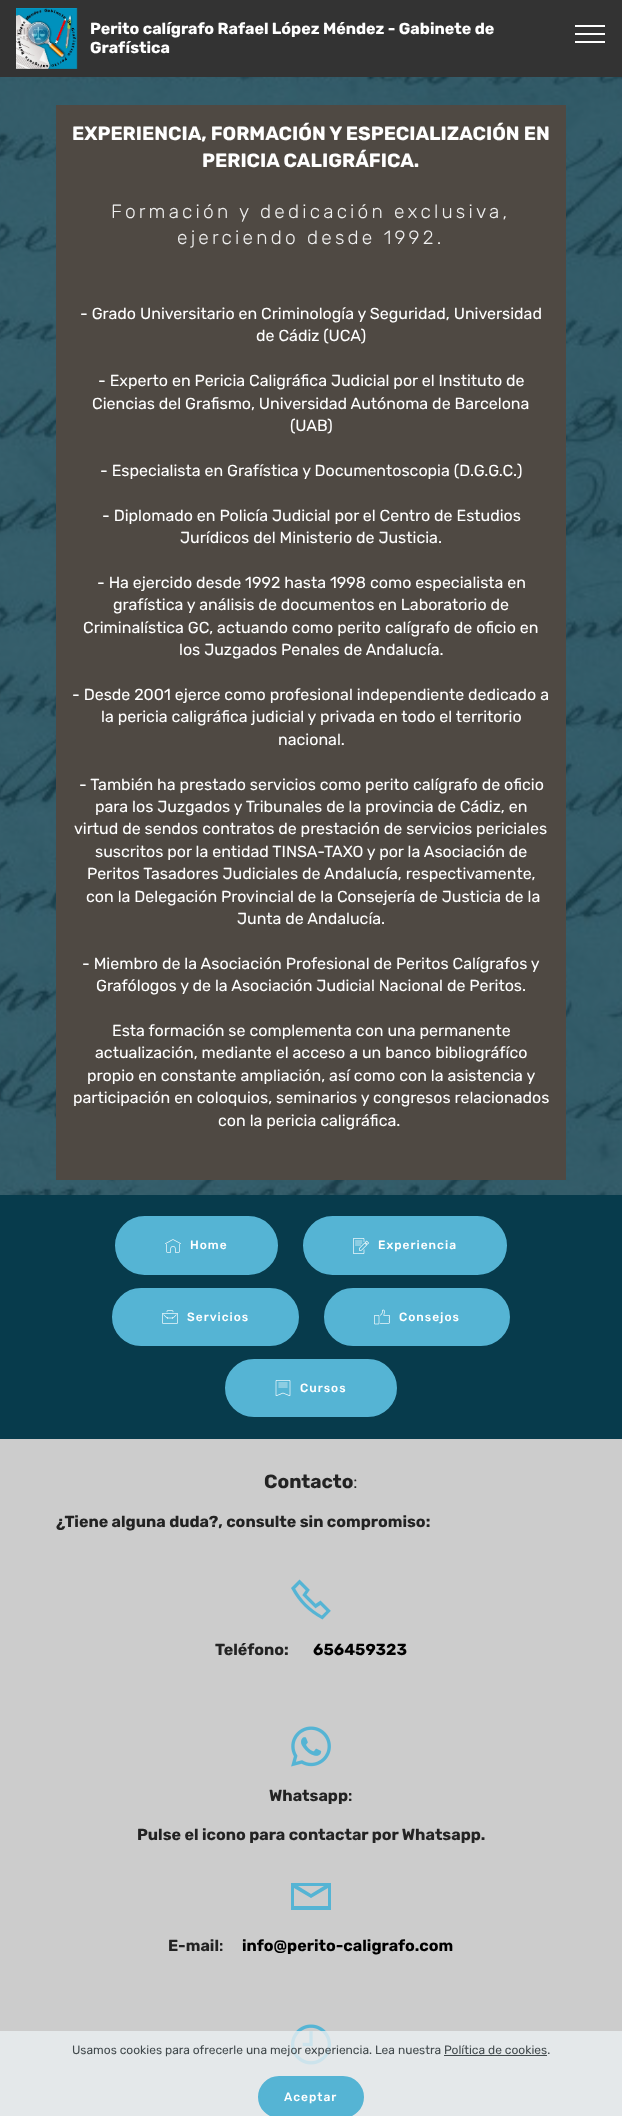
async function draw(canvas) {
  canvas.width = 622
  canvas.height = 2116
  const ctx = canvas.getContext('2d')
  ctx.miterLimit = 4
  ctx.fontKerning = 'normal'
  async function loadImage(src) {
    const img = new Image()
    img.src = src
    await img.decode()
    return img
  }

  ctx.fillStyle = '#fff'
  ctx.fillRect(0, 0, 622, 2116)
  ctx.fillStyle = '#333'
  ctx.fillRect(0, 0, 622, 77)
  ctx.drawImage(await loadImage('image0.png'), 16, 8, 62, 61)
  ctx.font = 'bold 16px Rubik'
  ctx.fillStyle = '#fff'
  ctx.fillText('Perito calígrafo Rafael López Méndez - Gabinete de', 90, 34)
  ctx.fillText('Grafística', 90, 53)
  ctx.fillRect(575, 25, 30, 2)
  ctx.fillRect(575, 33, 30, 2)
  ctx.fillRect(575, 41, 30, 2)
  ctx.drawImage(await loadImage('image1.png'), 0, 77, 622, 1118)
  ctx.fillStyle = '#4f4943'
  ctx.fillRect(56, 105, 510, 1075)
  ctx.font = 'bold 19.15px Rubik'
  ctx.fillStyle = '#fff'
  ctx.fillText('EXPERIENCIA, FORMACIÓN Y ESPECIALIZACIÓN EN', 72, 140)
  ctx.fillText('PERICIA CALIGRÁFICA.', 202, 167)
  ctx.letterSpacing = '3.2px'
  ctx.font = '300 19.15px Rubik'
  ctx.fillStyle = '#efefef'
  ctx.fillText('Formación y dedicación exclusiva,', 111, 218)
  ctx.fillText('ejerciendo desde 1992.', 177, 244)
  ctx.letterSpacing = '0px'
  ctx.font = '16px Rubik'
  ctx.fillStyle = '#fff'
  ctx.fillText('- Grado Universitario en Criminología y Seguridad, Universidad', 80, 319)
  ctx.fillText('de Cádiz (UCA)', 256, 341)
  ctx.fillText('- Experto en Pericia Caligráfica Judicial por el Instituto de', 98, 386)
  ctx.fillText('Ciencias del Grafismo, Universidad Autónoma de Barcelona', 92, 409)
  ctx.fillText('(UAB)', 290, 431)
  ctx.fillText('- Especialista en Grafística y Documentoscopia (D.G.G.C.)', 100, 476)
  ctx.fillText('- Diplomado en Policía Judicial por el Centro de Estudios', 102, 521)
  ctx.fillText('Jurídicos del Ministerio de Justicia.', 180, 543)
  ctx.fillText('- Ha ejercido desde 1992 hasta 1998 como especialista en', 97, 588)
  ctx.fillText('grafística y análisis de documentos en Laboratorio de', 113, 610)
  ctx.fillText('Criminalística GC, actuando como perito calígrafo de oficio en', 83, 633)
  ctx.fillText('los Juzgados Penales de Andalucía.', 179, 655)
  ctx.fillText('- Desde 2001 ejerce como profesional independiente dedicado a', 72, 700)
  ctx.fillText('la pericia caligráfica judicial y privada en todo el territorio', 101, 722)
  ctx.fillText('nacional.', 278, 745)
  ctx.fillText('- También ha prestado servicios como perito calígrafo de oficio', 79, 790)
  ctx.fillText('para los Juzgados y Tribunales de la provincia de Cádiz, en', 95, 812)
  ctx.fillText('virtud de sendos contratos de prestación de servicios periciales', 74, 834)
  ctx.fillText('suscritos por la entidad TINSA-TAXO y por la Asociación de', 95, 857)
  ctx.fillText('Peritos Tasadores Judiciales de Andalucía, respectivamente,', 87, 879)
  ctx.fillText('con la Delegación Provincial de la Consejería de Justicia de la', 86, 902)
  ctx.fillText('Junta de Andalucía.', 237, 924)
  ctx.fillText('- Miembro de la Asociación Profesional de Peritos Calígrafos y', 82, 969)
  ctx.fillText('Grafólogos y de la Asociación Judicial Nacional de Peritos.', 96, 991)
  ctx.fillText('Esta formación se complementa con una permanente', 112, 1036)
  ctx.fillText('actualización, mediante el acceso a un banco bibliográfíco', 95, 1058)
  ctx.fillText('propio en constante ampliación, así como con la asistencia y', 87, 1081)
  ctx.fillText('participación en coloquios, seminarios y congresos relacionados', 73, 1103)
  ctx.fillText('con la pericia caligráfica.', 218, 1126)
  ctx.fillStyle = '#073b4c'
  ctx.fillRect(0, 1195, 622, 244)
  ctx.fillStyle = '#55b4d4'
  ctx.beginPath()
  ctx.roundRect(116, 1217, 161, 57, 28.5)
  ctx.fill()
  ctx.strokeStyle = '#55b4d4'
  ctx.lineWidth = 2
  ctx.stroke()
  ctx.drawImage(await loadImage('image2.png'), 165, 1239, 16, 14)
  ctx.letterSpacing = '1px'
  ctx.font = '500 12px Rubik'
  ctx.fillStyle = '#fff'
  ctx.fillText('Home', 190, 1249)
  ctx.fillStyle = '#55b4d4'
  ctx.beginPath()
  ctx.roundRect(304, 1217, 202, 57, 28.5)
  ctx.fill()
  ctx.stroke()
  ctx.drawImage(await loadImage('image3.png'), 353, 1238, 16, 16)
  ctx.fillStyle = '#fff'
  ctx.fillText('Experiencia', 378, 1249)
  ctx.fillStyle = '#55b4d4'
  ctx.beginPath()
  ctx.roundRect(113, 1289, 185, 56, 28)
  ctx.fill()
  ctx.stroke()
  ctx.drawImage(await loadImage('image4.png'), 162, 1310, 16, 14)
  ctx.fillStyle = '#fff'
  ctx.fillText('Servicios', 187, 1321)
  ctx.fillStyle = '#55b4d4'
  ctx.beginPath()
  ctx.roundRect(325, 1289, 184, 56, 28)
  ctx.fill()
  ctx.stroke()
  ctx.drawImage(await loadImage('image5.png'), 374, 1309, 16, 16)
  ctx.fillStyle = '#fff'
  ctx.fillText('Consejos', 399, 1321)
  ctx.fillStyle = '#55b4d4'
  ctx.beginPath()
  ctx.roundRect(226, 1360, 170, 56, 28)
  ctx.fill()
  ctx.stroke()
  ctx.drawImage(await loadImage('image6.png'), 275, 1380, 16, 16)
  ctx.fillStyle = '#fff'
  ctx.fillText('Cursos', 300, 1392)
  ctx.fillStyle = '#ccc'
  ctx.fillRect(0, 1439, 622, 677)
  ctx.letterSpacing = '0px'
  ctx.font = 'bold 19.15px Rubik'
  ctx.fillStyle = '#232323'
  ctx.fillText('Contacto', 264, 1488)
  ctx.font = '300 19.15px Rubik'
  ctx.fillText(':', 353, 1488)
  ctx.font = 'bold 16px Rubik'
  ctx.fillText('¿Tiene alguna duda?, consulte sin compromiso:', 56, 1527)
  ctx.drawImage(await loadImage('image7.png'), 291, 1579, 40, 41)
  ctx.fillText('Teléfono:', 215, 1655)
  ctx.fillStyle = '#000'
  ctx.fillText('656459323', 313, 1655)
  ctx.drawImage(await loadImage('image8.png'), 291, 1726, 40, 41)
  ctx.fillStyle = '#232323'
  ctx.fillText('Whatsapp', 269, 1801)
  ctx.font = '500 16px Rubik'
  ctx.fillText(':', 348, 1801)
  ctx.font = 'bold 16px Rubik'
  ctx.fillText('Pulse el icono para contactar por Whatsapp.', 137, 1840)
  ctx.fillStyle = '#55b4d4'
  ctx.beginPath()
  ctx.moveTo(291, 1883)
  ctx.lineTo(291, 1910)
  ctx.lineTo(331, 1910)
  ctx.lineTo(331, 1883)
  ctx.closePath()
  ctx.moveTo(324, 1886)
  ctx.lineTo(311, 1894)
  ctx.lineTo(298, 1886)
  ctx.closePath()
  ctx.moveTo(294, 1906)
  ctx.lineTo(294, 1888)
  ctx.lineTo(311, 1898)
  ctx.lineTo(328, 1888)
  ctx.lineTo(328, 1906)
  ctx.closePath()
  ctx.fill()
  ctx.fillStyle = '#232323'
  ctx.fillText('E-mail', 168, 1951)
  ctx.font = '500 16px Rubik'
  ctx.fillText(':', 219, 1951)
  ctx.font = 'bold 16px Rubik'
  ctx.fillStyle = '#000'
  ctx.fillText('info@perito-caligrafo.com', 242, 1951)
  ctx.drawImage(await loadImage('image9.png'), 291, 2024, 40, 41)
  ctx.fillStyle = '#eaeff1cc'
  ctx.fillRect(0, 2031, 622, 85)
  ctx.font = '12px Rubik'
  ctx.fillStyle = '#424a4d'
  ctx.fillText('Usamos cookies para ofrecerle una mejor experiencia. Lea nuestra Política de cookies.', 72, 2054)
  ctx.fillRect(444, 2055, 103, 1)
  ctx.fillStyle = '#55b4d4'
  ctx.beginPath()
  ctx.roundRect(259, 2077, 104, 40, 20)
  ctx.fill()
  ctx.stroke()
  ctx.letterSpacing = '1px'
  ctx.font = '500 12px Rubik'
  ctx.fillStyle = '#fff'
  ctx.fillText('Aceptar', 284, 2101)
}

draw(document.querySelector('canvas'))
